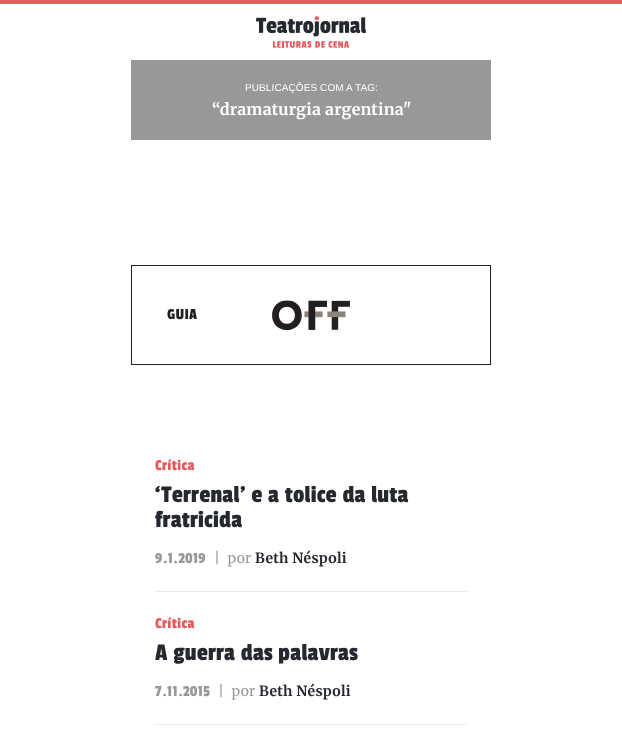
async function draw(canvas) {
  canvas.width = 622
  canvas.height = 729
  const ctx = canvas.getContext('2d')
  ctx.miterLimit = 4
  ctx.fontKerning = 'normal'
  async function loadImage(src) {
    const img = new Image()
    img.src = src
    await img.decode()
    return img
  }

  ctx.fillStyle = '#fff'
  ctx.fillRect(0, 0, 622, 729)
  ctx.fillStyle = '#e6595a'
  ctx.fillRect(0, 0, 622, 4)
  ctx.drawImage(await loadImage('image0.png'), 256, 16, 110, 32)
  ctx.fillStyle = '#989898'
  ctx.fillRect(131, 60, 360, 80)
  ctx.letterSpacing = '0.1px'
  ctx.font = '10px Liberation Sans'
  ctx.fillStyle = '#fff'
  ctx.fillText('PUBLICAÇÕES COM A TAG:', 245, 91)
  ctx.letterSpacing = '0.2px'
  ctx.font = 'bold 16px Merriweather'
  ctx.fillText('“dramaturgia argentina"', 212, 115)
  ctx.strokeStyle = '#231f20'
  ctx.strokeRect(131.5, 265.5, 359, 99)
  ctx.font = '16px Passion One'
  ctx.fillStyle = '#231f20'
  ctx.fillText('GUIA', 167, 319)
  ctx.drawImage(await loadImage('image1.png'), 272, 300, 78, 30)
  ctx.fillStyle = '#e9e9e9'
  ctx.fillRect(155, 591, 312, 1)
  ctx.letterSpacing = '0.5px'
  ctx.fillStyle = '#e6595a'
  ctx.fillText('Crítica', 155, 470)
  ctx.letterSpacing = '0.25px'
  ctx.font = '25px Passion One'
  ctx.fillStyle = '#25292f'
  ctx.fillText('‘Terrenal’ e a tolice da luta', 155, 502)
  ctx.fillText('fratricida', 155, 527)
  ctx.letterSpacing = '0.3px'
  ctx.font = '16px Passion One'
  ctx.fillStyle = '#989898'
  ctx.fillText('9.1.2019', 155, 563)
  ctx.font = '14px Merriweather'
  ctx.fillText('|  por', 214, 563)
  ctx.font = 'bold 14px Merriweather'
  ctx.fillStyle = '#25292f'
  ctx.fillText('Beth Néspoli', 255, 563)
  ctx.fillStyle = '#e9e9e9'
  ctx.fillRect(155, 724, 312, 1)
  ctx.letterSpacing = '0.5px'
  ctx.font = '16px Passion One'
  ctx.fillStyle = '#e6595a'
  ctx.fillText('Crítica', 155, 628)
  ctx.letterSpacing = '0.25px'
  ctx.font = '25px Passion One'
  ctx.fillStyle = '#25292f'
  ctx.fillText('A guerra das palavras', 155, 660)
  ctx.letterSpacing = '0.3px'
  ctx.font = '16px Passion One'
  ctx.fillStyle = '#989898'
  ctx.fillText('7.11.2015', 155, 696)
  ctx.font = '14px Merriweather'
  ctx.fillText('|  por', 218, 696)
  ctx.font = 'bold 14px Merriweather'
  ctx.fillStyle = '#25292f'
  ctx.fillText('Beth Néspoli', 259, 696)
}

draw(document.querySelector('canvas'))
